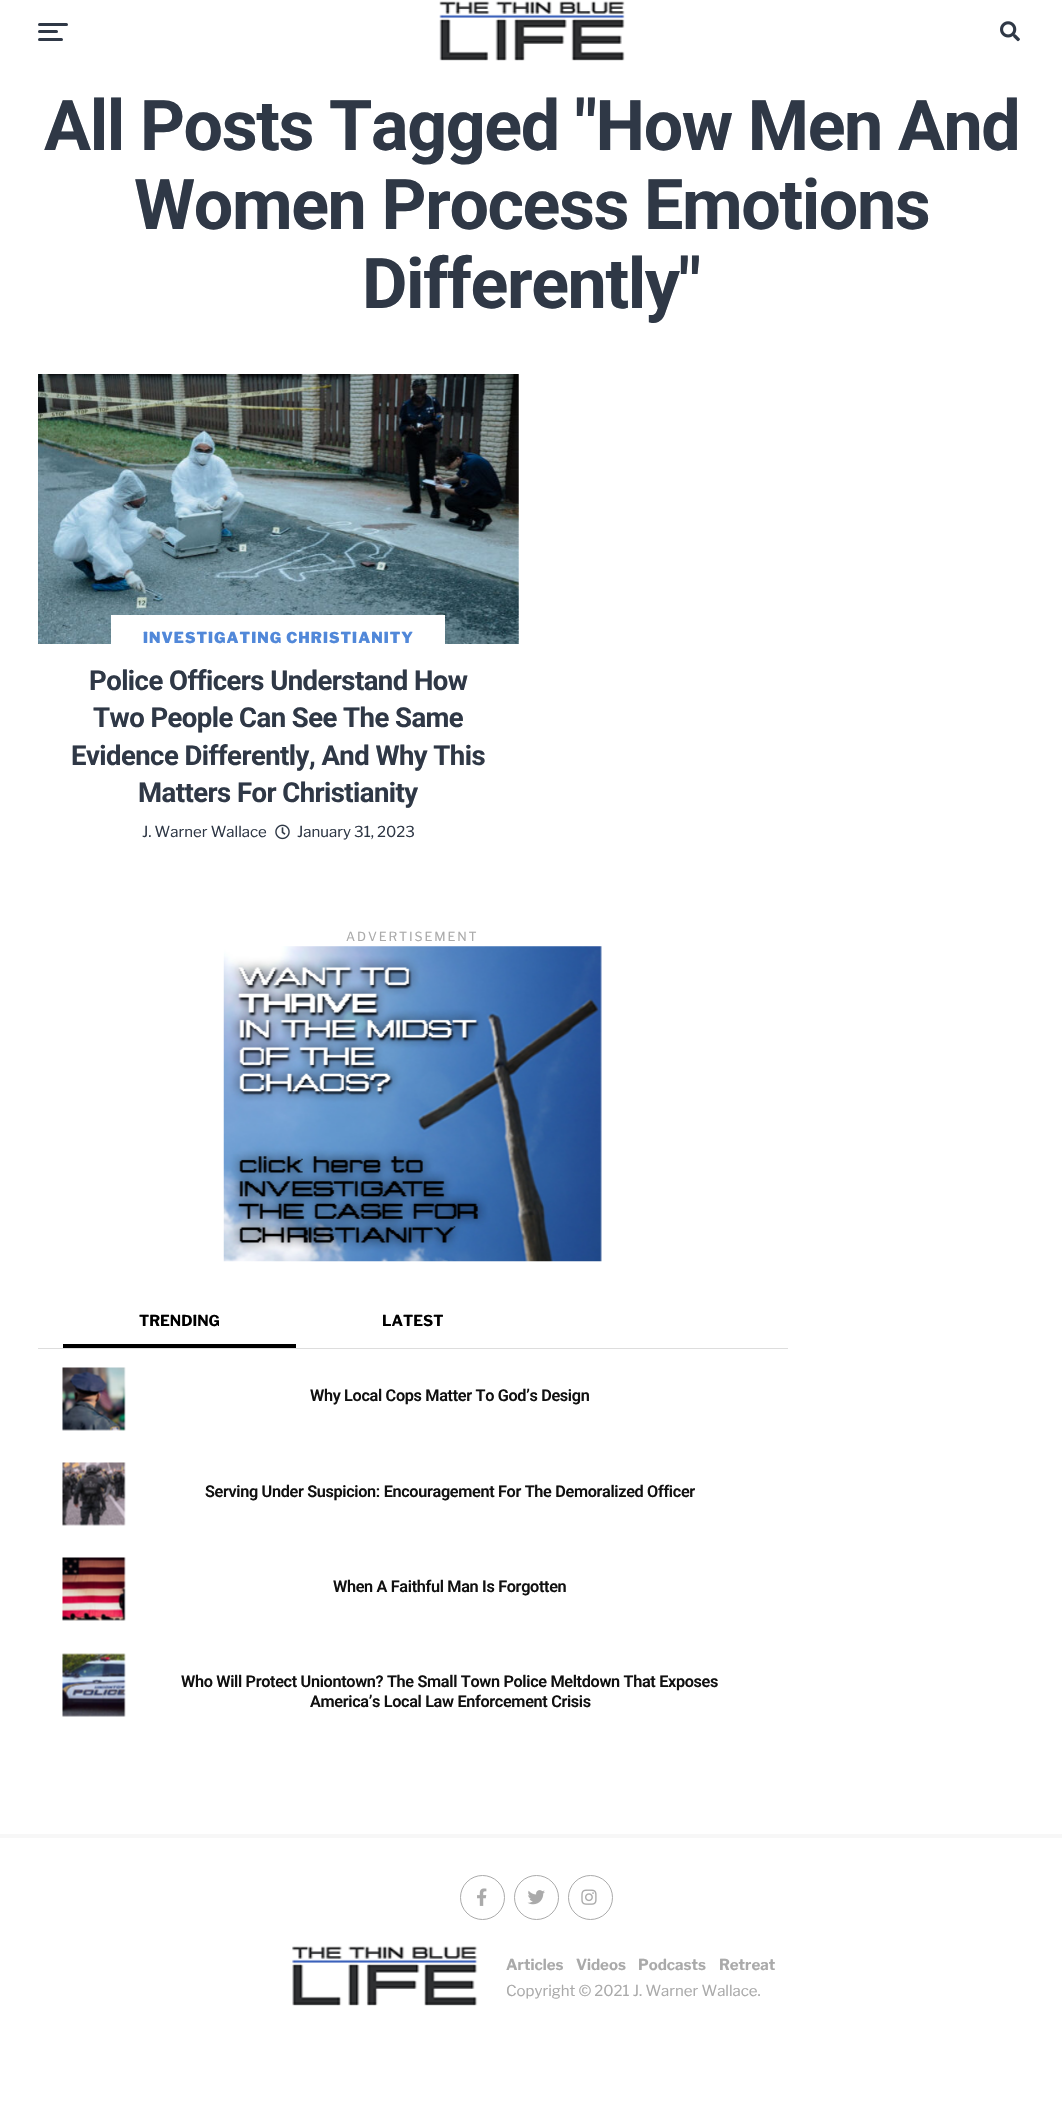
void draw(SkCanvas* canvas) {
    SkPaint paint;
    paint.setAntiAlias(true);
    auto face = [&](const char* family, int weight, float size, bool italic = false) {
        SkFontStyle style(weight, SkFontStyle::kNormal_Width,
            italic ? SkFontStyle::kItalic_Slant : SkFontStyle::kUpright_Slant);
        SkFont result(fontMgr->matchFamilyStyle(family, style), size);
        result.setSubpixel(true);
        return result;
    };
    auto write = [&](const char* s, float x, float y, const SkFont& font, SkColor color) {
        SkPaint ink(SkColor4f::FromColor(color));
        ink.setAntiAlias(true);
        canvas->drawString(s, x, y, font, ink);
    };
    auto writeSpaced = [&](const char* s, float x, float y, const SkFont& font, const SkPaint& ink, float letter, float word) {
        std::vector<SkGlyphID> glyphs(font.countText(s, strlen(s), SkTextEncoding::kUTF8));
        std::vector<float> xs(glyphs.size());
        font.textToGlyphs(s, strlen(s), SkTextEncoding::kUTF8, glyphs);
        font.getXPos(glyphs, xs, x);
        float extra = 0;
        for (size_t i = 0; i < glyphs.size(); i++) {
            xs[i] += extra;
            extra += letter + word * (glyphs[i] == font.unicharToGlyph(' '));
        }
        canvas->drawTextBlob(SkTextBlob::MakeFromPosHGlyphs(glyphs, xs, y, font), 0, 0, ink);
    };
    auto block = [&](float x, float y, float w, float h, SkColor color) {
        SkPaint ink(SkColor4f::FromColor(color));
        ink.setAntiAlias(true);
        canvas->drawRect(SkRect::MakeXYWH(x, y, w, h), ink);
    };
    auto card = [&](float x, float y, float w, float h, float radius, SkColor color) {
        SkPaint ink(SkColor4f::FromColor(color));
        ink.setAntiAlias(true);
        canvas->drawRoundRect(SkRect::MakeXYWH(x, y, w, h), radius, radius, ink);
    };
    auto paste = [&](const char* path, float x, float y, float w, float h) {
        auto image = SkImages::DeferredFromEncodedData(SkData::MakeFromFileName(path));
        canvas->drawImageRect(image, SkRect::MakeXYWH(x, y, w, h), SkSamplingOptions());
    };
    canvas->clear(SK_ColorWHITE);
    card(38, 23, 30, 3, 1.5f, SkColorSetRGB(47, 56, 70));
    card(38, 30, 20, 3, 1.5f, SkColorSetRGB(47, 56, 70));
    card(38, 38, 25, 3, 1.5f, SkColorSetRGB(47, 56, 70));
    paste("pic1.png", 439, 1, 186, 60);
    paste("pic2.png", 1000, 21, 20, 21);
    auto kFont1 = face("Roboto", 700, 70);
    paint.setColor(SkColorSetRGB(47, 56, 70));
    writeSpaced("All Posts Tagged \"How Men And", 44, 150, kFont1, paint, -1.4f, 0);
    writeSpaced("Women Process Emotions", 134, 229, kFont1, paint, -1.4f, 0);
    writeSpaced("Differently\"", 362, 308, kFont1, paint, -1.4f, 0);
    paste("pic3.png", 38, 374, 481, 270);
    block(111, 615, 334, 29, SK_ColorWHITE);
    auto kFont2 = face("Libre Franklin", 900, 15);
    paint.setColor(SkColorSetRGB(81, 136, 217));
    writeSpaced("INVESTIGATING CHRISTIANITY", 143, 643, kFont2, paint, 1.05f, 0);
    auto kFont3 = face("Roboto", 700, 27.5f);
    paint.setColor(SkColorSetRGB(47, 56, 70));
    writeSpaced("Police Officers Understand How", 89, 690, kFont3, paint, -0.55f, 0);
    writeSpaced("Two People Can See The Same", 93, 727, kFont3, paint, -0.55f, 0);
    writeSpaced("Evidence Differently, And Why This", 71, 765, kFont3, paint, -0.55f, 0);
    writeSpaced("Matters For Christianity", 138, 802, kFont3, paint, -0.55f, 0);
    auto kFont4 = face("Libre Franklin", 400, 15);
    write("J. Warner Wallace", 142, 837, kFont4, SkColorSetRGB(47, 56, 70));
    paste("pic4.png", 275, 824, 15, 16);
    write("January 31, 2023", 297, 837, kFont4, SkColorSetRGB(47, 56, 70));
    auto kFont5 = face("Libre Franklin", 400, 12.5f);
    paint.setColor(SkColorSetRGB(170, 170, 170));
    writeSpaced("ADVERTISEMENT", 346, 941, kFont5, paint, 1.9f, 0);
    paste("pic5.png", 223, 946, 379, 316);
    block(38, 1348, 750, 1, SkColorSetRGB(221, 221, 221));
    block(63, 1344, 233, 4, SK_ColorBLACK);
    auto kFont6 = face("Libre Franklin", 700, 15);
    write("TRENDING", 139, 1326, kFont6, SK_ColorBLACK);
    write("LATEST", 382, 1326, kFont6, SK_ColorBLACK);
    paste("pic6.png", 62, 1367, 64, 64);
    auto kFont7 = face("Roboto", 600, 16.25f);
    paint.setColor(SkColorSetRGB(17, 17, 17));
    writeSpaced("Why Local Cops Matter To God’s Design", 310, 1401, kFont7, paint, -0.33f, 0);
    paste("pic7.png", 62, 1462, 64, 64);
    writeSpaced("Serving Under Suspicion: Encouragement For The Demoralized Officer", 205, 1497, kFont7, paint, -0.33f, 0);
    paste("pic8.png", 62, 1557, 64, 64);
    writeSpaced("When A Faithful Man Is Forgotten", 333, 1592, kFont7, paint, -0.33f, 0);
    paste("pic9.png", 62, 1653, 64, 64);
    writeSpaced("Who Will Protect Uniontown? The Small Town Police Meltdown That Exposes", 181, 1687, kFont7, paint, -0.33f, 0);
    writeSpaced("America’s Local Law Enforcement Crisis", 310, 1707, kFont7, paint, -0.33f, 0);
    block(0, 1834, 1062, 4, SkColorSetRGB(247, 247, 247));
    paint.setStyle(SkPaint::kStroke_Style);
    paint.setStrokeWidth(1);
    paint.setColor(SkColorSetRGB(170, 170, 170));
    canvas->drawCircle(482.5f, 1897.5f, 22, paint);
    paste("pic10.png", 477, 1888, 10, 18);
    canvas->drawCircle(536.5f, 1897.5f, 22, paint);
    paste("pic11.png", 527, 1890, 18, 15);
    canvas->drawCircle(590.5f, 1897.5f, 22, paint);
    paste("pic12.png", 581, 1889, 16, 16);
    paste("pic13.png", 292, 1946, 186, 60);
    write("Articles", 506, 1970, kFont6, SkColorSetRGB(170, 170, 170));
    write("Videos", 576, 1970, kFont6, SkColorSetRGB(170, 170, 170));
    write("Podcasts", 638, 1970, kFont6, SkColorSetRGB(170, 170, 170));
    write("Retreat", 719, 1970, kFont6, SkColorSetRGB(170, 170, 170));
    write("Copyright © 2021 J. Warner Wallace.", 506, 1996, kFont4, SkColorSetRGB(170, 170, 170));
}
